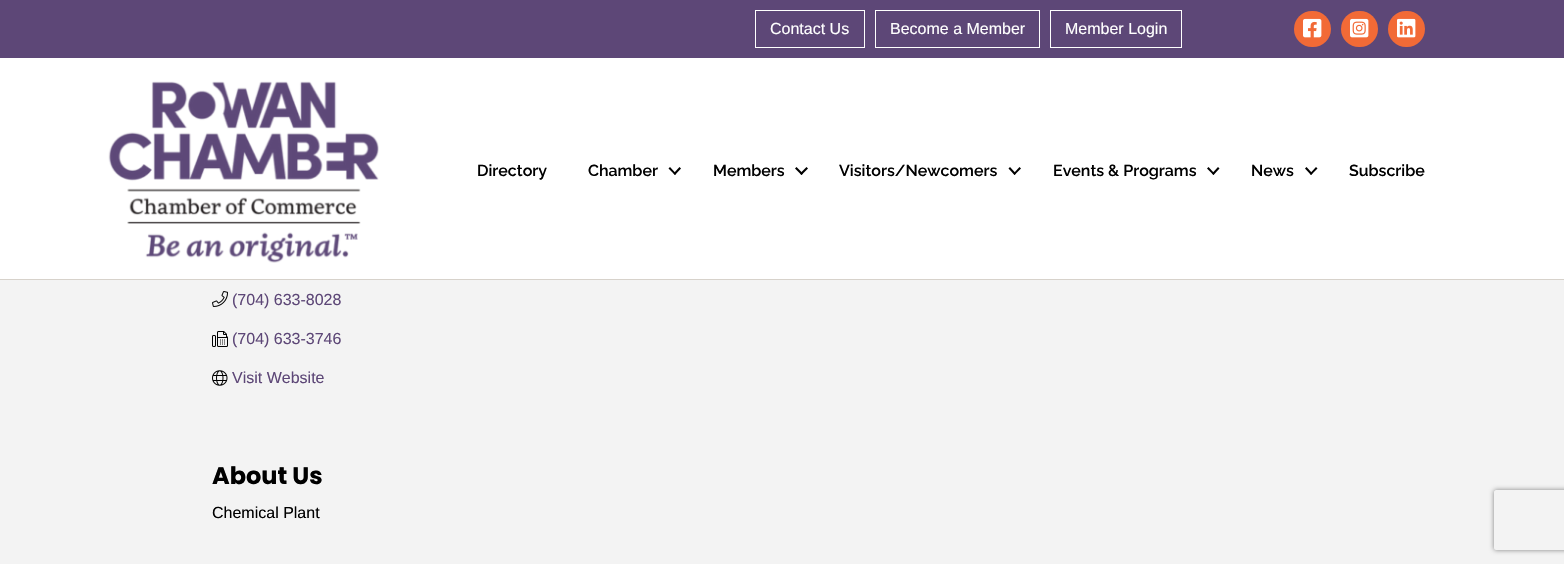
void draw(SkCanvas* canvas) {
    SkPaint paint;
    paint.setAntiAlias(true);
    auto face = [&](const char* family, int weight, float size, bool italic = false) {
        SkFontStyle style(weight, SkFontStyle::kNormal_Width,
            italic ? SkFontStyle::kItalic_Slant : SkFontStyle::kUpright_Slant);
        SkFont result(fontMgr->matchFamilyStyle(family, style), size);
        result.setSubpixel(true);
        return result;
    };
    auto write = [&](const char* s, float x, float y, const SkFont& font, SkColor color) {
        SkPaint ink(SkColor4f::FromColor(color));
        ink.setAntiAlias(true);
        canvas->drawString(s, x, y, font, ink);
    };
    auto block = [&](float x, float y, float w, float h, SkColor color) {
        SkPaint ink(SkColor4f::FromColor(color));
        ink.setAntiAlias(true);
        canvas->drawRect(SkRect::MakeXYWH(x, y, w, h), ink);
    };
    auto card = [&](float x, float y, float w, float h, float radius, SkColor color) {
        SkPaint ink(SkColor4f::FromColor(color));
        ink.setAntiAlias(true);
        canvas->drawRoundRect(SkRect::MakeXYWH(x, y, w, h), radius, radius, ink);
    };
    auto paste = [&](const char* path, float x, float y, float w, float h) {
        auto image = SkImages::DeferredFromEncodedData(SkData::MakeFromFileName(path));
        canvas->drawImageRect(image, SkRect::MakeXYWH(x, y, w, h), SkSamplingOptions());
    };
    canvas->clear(SkColorSetRGB(243, 243, 243));
    block(0, 0, 1564, 58, SkColorSetRGB(93, 71, 119));
    paint.setStyle(SkPaint::kStroke_Style);
    paint.setStrokeWidth(1);
    paint.setColor(SK_ColorWHITE);
    canvas->drawRect(SkRect::MakeXYWH(755.5f, 10.5f, 109, 37), paint);
    auto kFont1 = face("Liberation Sans", 400, 16);
    write("Contact Us", 770, 34, kFont1, SK_ColorWHITE);
    canvas->drawRect(SkRect::MakeXYWH(875.5f, 10.5f, 164, 37), paint);
    write("Become a Member", 890, 34, kFont1, SK_ColorWHITE);
    canvas->drawRect(SkRect::MakeXYWH(1050.5f, 10.5f, 131, 37), paint);
    write("Member Login", 1065, 34, kFont1, SK_ColorWHITE);
    card(1294, 11, 37, 36, 18, SkColorSetRGB(242, 106, 54));
    paste("pic1.png", 1303, 18, 19, 20);
    card(1341, 11, 37, 36, 18, SkColorSetRGB(242, 106, 54));
    paste("pic2.png", 1350, 18, 19, 20);
    card(1388, 11, 37, 36, 18, SkColorSetRGB(242, 106, 54));
    paste("pic3.png", 1397, 18, 19, 20);
    block(0, 58, 1564, 221, SK_ColorWHITE);
    block(0, 279, 1564, 1, SkColorSetRGB(215, 210, 203));
    paste("pic4.png", 108, 81, 271, 182);
    auto kFont2 = face("Raleway", 600, 16);
    write("Directory", 477, 176, kFont2, SK_ColorBLACK);
    write("Chamber", 588, 176, kFont2, SK_ColorBLACK);
    paint.setStyle(SkPaint::kFill_Style);
    paint.setColor(SK_ColorBLACK);
    canvas->drawPath(SkPathBuilder().moveTo(679.5f, 167).lineTo(681, 168.5f).lineTo(675, 175).lineTo(673.5f, 173.5f).close().detach(), paint);
    canvas->drawPath(SkPathBuilder().moveTo(670, 167).lineTo(676, 173.5f).lineTo(675, 175).lineTo(668.5f, 168.5f).close().detach(), paint);
    write("Members", 713, 176, kFont2, SK_ColorBLACK);
    canvas->drawPath(SkPathBuilder().moveTo(806.5f, 167).lineTo(808, 168.5f).lineTo(801.5f, 175).lineTo(800, 173.5f).close().detach(), paint);
    canvas->drawPath(SkPathBuilder().moveTo(796.5f, 167).lineTo(803, 173.5f).lineTo(801.5f, 175).lineTo(795, 168.5f).close().detach(), paint);
    write("Visitors/Newcomers", 839, 176, kFont2, SK_ColorBLACK);
    canvas->drawPath(SkPathBuilder().moveTo(1019.5f, 167).lineTo(1021, 168.5f).lineTo(1014.5f, 175).lineTo(1013.5f, 173.5f).close().detach(), paint);
    canvas->drawPath(SkPathBuilder().moveTo(1010, 167).lineTo(1016, 173.5f).lineTo(1014.5f, 175).lineTo(1008.5f, 168.5f).close().detach(), paint);
    write("Events & Programs", 1053, 176, kFont2, SK_ColorBLACK);
    canvas->drawPath(SkPathBuilder().moveTo(1218, 167).lineTo(1219.5f, 168.5f).lineTo(1213.5f, 175).lineTo(1212, 173.5f).close().detach(), paint);
    canvas->drawPath(SkPathBuilder().moveTo(1208.5f, 167).lineTo(1214.5f, 173.5f).lineTo(1213.5f, 175).lineTo(1207, 168.5f).close().detach(), paint);
    write("News", 1251, 176, kFont2, SK_ColorBLACK);
    canvas->drawPath(SkPathBuilder().moveTo(1316, 167).lineTo(1317.5f, 168.5f).lineTo(1311, 175).lineTo(1310, 173.5f).close().detach(), paint);
    canvas->drawPath(SkPathBuilder().moveTo(1306.5f, 167).lineTo(1312.5f, 173.5f).lineTo(1311, 175).lineTo(1305, 168.5f).close().detach(), paint);
    write("Subscribe", 1349, 176, kFont2, SK_ColorBLACK);
    paste("pic5.png", 212, 291, 16, 16);
    write("(704) 633-8028", 232, 305, kFont1, SkColorSetRGB(93, 71, 119));
    paste("pic6.png", 212, 331, 16, 16);
    write("(704) 633-3746", 232, 344, kFont1, SkColorSetRGB(93, 71, 119));
    paste("pic7.png", 212, 370, 16, 16);
    write("Visit Website", 232, 383, kFont1, SkColorSetRGB(93, 71, 119));
    auto kFont3 = face("Poppins", 700, 24);
    write("About Us", 212, 484, kFont3, SK_ColorBLACK);
    write("Chemical Plant", 212, 518, kFont1, SK_ColorBLACK);
    canvas->save();
    canvas->clipPath(SkPathBuilder(SkPathFillType::kEvenOdd).moveTo(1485, 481).lineTo(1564, 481).lineTo(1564, 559).lineTo(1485, 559).close().moveTo(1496, 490).lineTo(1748, 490).cubicTo(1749, 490, 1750, 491, 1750, 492).lineTo(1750, 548).cubicTo(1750, 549, 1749, 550, 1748, 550).lineTo(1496, 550).cubicTo(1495, 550, 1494, 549, 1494, 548).lineTo(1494, 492).cubicTo(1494, 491, 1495, 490, 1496, 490).close().detach(), true);
    paint.setColor(SkColorSetRGB(128, 128, 128));
    paint.setMaskFilter(SkMaskFilter::MakeBlur(kNormal_SkBlurStyle, 2.5f));
    canvas->drawRoundRect(SkRect::MakeXYWH(1494, 490, 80, 60), 2, 2, paint);
    paint.setMaskFilter(nullptr);
    canvas->restore();
}
